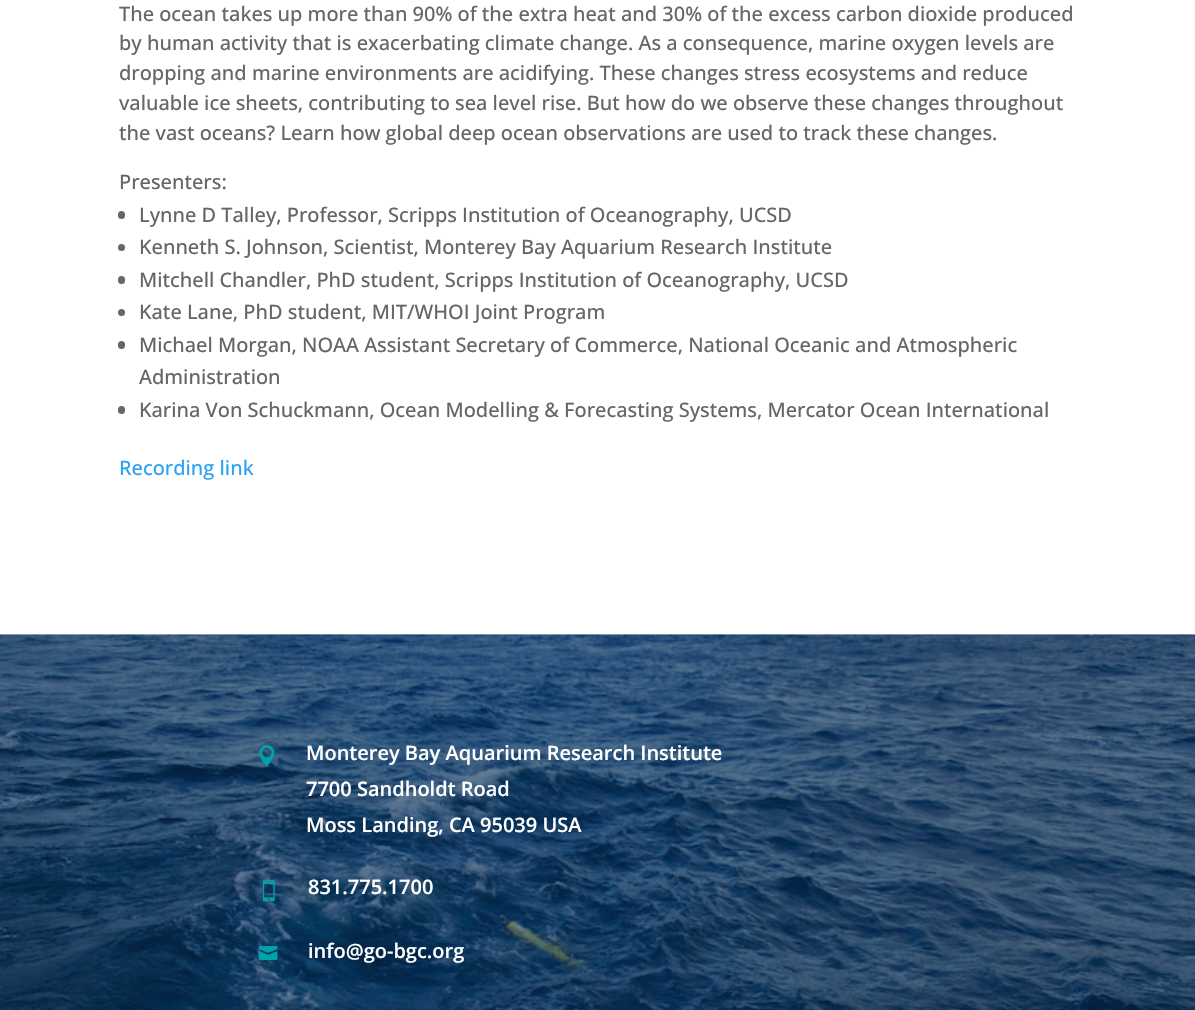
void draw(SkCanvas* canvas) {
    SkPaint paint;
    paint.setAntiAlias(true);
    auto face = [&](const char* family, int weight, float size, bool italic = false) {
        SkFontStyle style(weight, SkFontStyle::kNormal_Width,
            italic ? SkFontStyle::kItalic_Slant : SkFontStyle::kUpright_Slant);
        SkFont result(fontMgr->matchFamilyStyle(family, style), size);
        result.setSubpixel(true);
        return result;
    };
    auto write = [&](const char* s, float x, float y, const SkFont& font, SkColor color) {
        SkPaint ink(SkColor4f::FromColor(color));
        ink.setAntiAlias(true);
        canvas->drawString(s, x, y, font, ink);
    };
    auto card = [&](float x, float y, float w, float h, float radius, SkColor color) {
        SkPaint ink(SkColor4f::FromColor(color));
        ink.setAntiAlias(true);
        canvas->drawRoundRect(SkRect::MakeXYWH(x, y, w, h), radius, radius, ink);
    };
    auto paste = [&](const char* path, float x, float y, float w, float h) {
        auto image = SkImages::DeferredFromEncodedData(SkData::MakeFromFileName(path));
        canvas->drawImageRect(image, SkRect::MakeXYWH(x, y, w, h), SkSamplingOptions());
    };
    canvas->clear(SK_ColorWHITE);
    auto kFont1 = face("Open Sans", 500, 20);
    write("The ocean takes up more than 90% of the extra heat and 30% of the excess carbon dioxide produced", 119, 21, kFont1, SkColorSetRGB(102, 102, 102));
    write("by human activity that is exacerbating climate change. As a consequence, marine oxygen levels are", 119, 50, kFont1, SkColorSetRGB(102, 102, 102));
    write("dropping and marine environments are acidifying. These changes stress ecosystems and reduce", 119, 80, kFont1, SkColorSetRGB(102, 102, 102));
    write("valuable ice sheets, contributing to sea level rise. But how do we observe these changes throughout", 119, 110, kFont1, SkColorSetRGB(102, 102, 102));
    write("the vast oceans? Learn how global deep ocean observations are used to track these changes.", 119, 140, kFont1, SkColorSetRGB(102, 102, 102));
    write("Presenters:", 119, 189, kFont1, SkColorSetRGB(102, 102, 102));
    card(118, 211, 7, 8, 3.5f, SkColorSetRGB(102, 102, 102));
    write("Lynne D Talley, Professor, Scripps Institution of Oceanography, UCSD", 139, 222, kFont1, SkColorSetRGB(102, 102, 102));
    paint.setColor(SkColorSetRGB(102, 102, 102));
    canvas->drawCircle(121.5f, 247.5f, 3.5f, paint);
    write("Kenneth S. Johnson, Scientist, Monterey Bay Aquarium Research Institute", 139, 254, kFont1, SkColorSetRGB(102, 102, 102));
    card(118, 276, 7, 8, 3.5f, SkColorSetRGB(102, 102, 102));
    write("Mitchell Chandler, PhD student, Scripps Institution of Oceanography, UCSD", 139, 287, kFont1, SkColorSetRGB(102, 102, 102));
    canvas->drawCircle(121.5f, 312.5f, 3.5f, paint);
    write("Kate Lane, PhD student, MIT/WHOI Joint Program", 139, 319, kFont1, SkColorSetRGB(102, 102, 102));
    card(118, 341, 7, 8, 3.5f, SkColorSetRGB(102, 102, 102));
    write("Michael Morgan, NOAA Assistant Secretary of Commerce, National Oceanic and Atmospheric", 139, 352, kFont1, SkColorSetRGB(102, 102, 102));
    write("Administration", 139, 384, kFont1, SkColorSetRGB(102, 102, 102));
    card(118, 406, 7, 8, 3.5f, SkColorSetRGB(102, 102, 102));
    write("Karina Von Schuckmann, Ocean Modelling & Forecasting Systems, Mercator Ocean International", 139, 417, kFont1, SkColorSetRGB(102, 102, 102));
    write("Recording link", 119, 475, kFont1, SkColorSetRGB(46, 163, 242));
    paste("pic1.png", 0, 634, 1195, 376);
    paste("pic2.png", 259, 745, 16, 22);
    auto kFont2 = face("Open Sans", 600, 20);
    write("Monterey Bay Aquarium Research Institute", 306, 760, kFont2, SK_ColorWHITE);
    write("7700 Sandholdt Road", 306, 796, kFont2, SK_ColorWHITE);
    write("Moss Landing, CA 95039 USA", 306, 832, kFont2, SK_ColorWHITE);
    paste("pic3.png", 262, 880, 13, 22);
    write("831.775.1700", 308, 894, kFont2, SK_ColorWHITE);
    paste("pic4.png", 258, 946, 20, 15);
    write("info@go-bgc.org", 308, 958, kFont2, SK_ColorWHITE);
}
